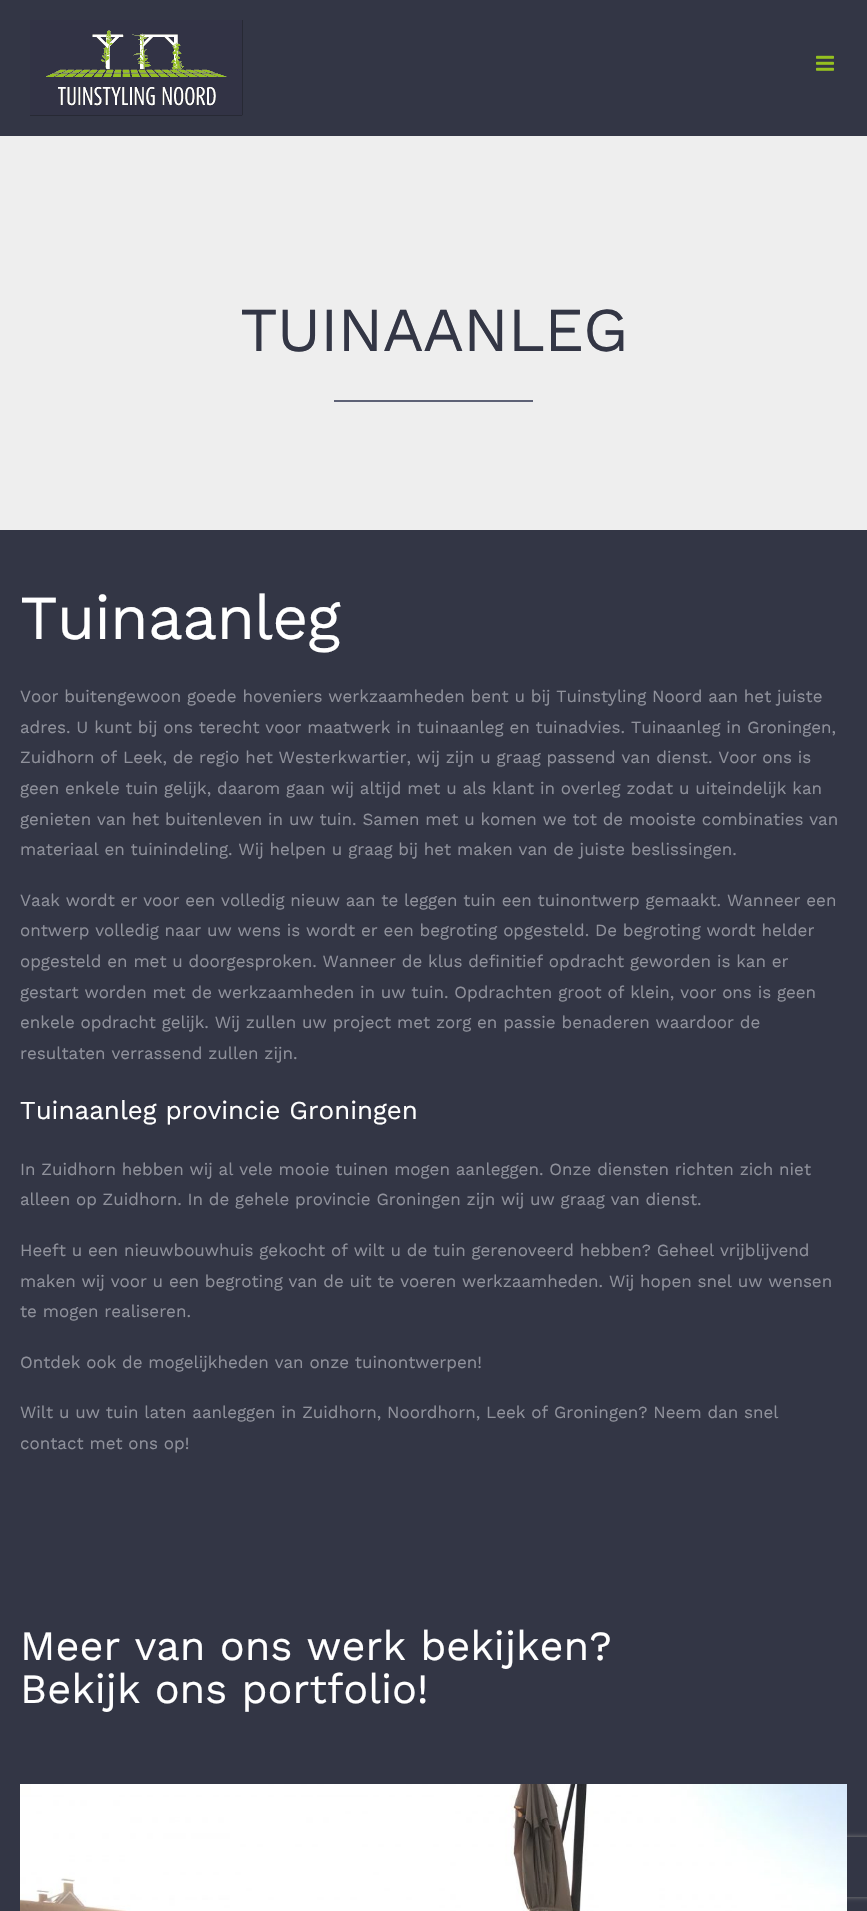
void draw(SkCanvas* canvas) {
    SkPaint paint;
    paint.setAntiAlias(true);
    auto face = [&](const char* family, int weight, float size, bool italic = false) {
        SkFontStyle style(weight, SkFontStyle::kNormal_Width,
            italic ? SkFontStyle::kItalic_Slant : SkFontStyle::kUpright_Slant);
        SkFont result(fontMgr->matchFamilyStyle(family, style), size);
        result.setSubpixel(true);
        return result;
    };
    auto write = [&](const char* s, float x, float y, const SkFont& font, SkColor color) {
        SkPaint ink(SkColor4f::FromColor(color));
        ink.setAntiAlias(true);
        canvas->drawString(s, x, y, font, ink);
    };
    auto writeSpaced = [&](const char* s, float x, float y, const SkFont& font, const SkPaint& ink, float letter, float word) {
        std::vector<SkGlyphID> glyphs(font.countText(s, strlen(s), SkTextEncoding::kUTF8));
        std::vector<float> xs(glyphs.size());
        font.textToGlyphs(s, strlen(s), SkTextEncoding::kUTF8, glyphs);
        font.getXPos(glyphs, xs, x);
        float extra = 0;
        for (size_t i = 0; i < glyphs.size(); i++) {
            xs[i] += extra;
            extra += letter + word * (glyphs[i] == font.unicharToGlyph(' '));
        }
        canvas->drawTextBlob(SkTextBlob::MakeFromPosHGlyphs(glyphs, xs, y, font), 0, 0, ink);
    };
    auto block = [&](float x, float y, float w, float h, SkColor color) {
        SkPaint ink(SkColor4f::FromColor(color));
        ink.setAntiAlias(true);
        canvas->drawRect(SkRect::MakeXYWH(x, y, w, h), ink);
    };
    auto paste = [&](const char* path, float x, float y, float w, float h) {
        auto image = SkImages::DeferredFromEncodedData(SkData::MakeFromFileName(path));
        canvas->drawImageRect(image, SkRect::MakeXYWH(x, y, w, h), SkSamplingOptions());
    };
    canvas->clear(SkColorSetRGB(51, 54, 69));
    paste("pic1.png", 30, 20, 213, 96);
    paste("pic2.png", 816, 55, 18, 16);
    block(0, 136, 867, 394, SkColorSetRGB(238, 238, 238));
    auto kFont1 = face("Work Sans", 400, 62.5f);
    paint.setColor(SkColorSetRGB(51, 54, 69));
    writeSpaced("TUINAANLEG", 240, 351, kFont1, paint, -1, 0);
    block(334, 400, 199, 2, SkColorSetRGB(94, 98, 118));
    paint.setColor(SK_ColorWHITE);
    writeSpaced("Tuinaanleg", 20, 639, kFont1, paint, -1, 0);
    auto kFont2 = face("Work Sans", 400, 17);
    write("Voor buitengewoon goede hoveniers werkzaamheden bent u bij Tuinstyling Noord aan het juiste", 20, 702, kFont2, SkColorSetRGB(143, 145, 155));
    write("adres. U kunt bij ons terecht voor maatwerk in tuinaanleg en tuinadvies. Tuinaanleg in Groningen,", 20, 733, kFont2, SkColorSetRGB(143, 145, 155));
    write("Zuidhorn of Leek, de regio het Westerkwartier, wij zijn u graag passend van dienst. Voor ons is", 20, 763, kFont2, SkColorSetRGB(143, 145, 155));
    write("geen enkele tuin gelijk, daarom gaan wij altijd met u als klant in overleg zodat u uiteindelijk kan", 20, 794, kFont2, SkColorSetRGB(143, 145, 155));
    write("genieten van het buitenleven in uw tuin. Samen met u komen we tot de mooiste combinaties van", 20, 825, kFont2, SkColorSetRGB(143, 145, 155));
    write("materiaal en tuinindeling. Wij helpen u graag bij het maken van de juiste beslissingen.", 20, 855, kFont2, SkColorSetRGB(143, 145, 155));
    write("Vaak wordt er voor een volledig nieuw aan te leggen tuin een tuinontwerp gemaakt. Wanneer een", 20, 906, kFont2, SkColorSetRGB(143, 145, 155));
    write("ontwerp volledig naar uw wens is wordt er een begroting opgesteld. De begroting wordt helder", 20, 936, kFont2, SkColorSetRGB(143, 145, 155));
    write("opgesteld en met u doorgesproken. Wanneer de klus definitief opdracht geworden is kan er", 20, 967, kFont2, SkColorSetRGB(143, 145, 155));
    write("gestart worden met de werkzaamheden in uw tuin. Opdrachten groot of klein, voor ons is geen", 20, 998, kFont2, SkColorSetRGB(143, 145, 155));
    write("enkele opdracht gelijk. Wij zullen uw project met zorg en passie benaderen waardoor de", 20, 1028, kFont2, SkColorSetRGB(143, 145, 155));
    write("resultaten verrassend zullen zijn.", 20, 1059, kFont2, SkColorSetRGB(143, 145, 155));
    auto kFont3 = face("Work Sans", 400, 25.9f);
    write("Tuinaanleg provincie Groningen", 20, 1119, kFont3, SK_ColorWHITE);
    write("In Zuidhorn hebben wij al vele mooie tuinen mogen aanleggen. Onze diensten richten zich niet", 20, 1175, kFont2, SkColorSetRGB(143, 145, 155));
    write("alleen op Zuidhorn. In de gehele provincie Groningen zijn wij uw graag van dienst.", 20, 1205, kFont2, SkColorSetRGB(143, 145, 155));
    write("Heeft u een nieuwbouwhuis gekocht of wilt u de tuin gerenoveerd hebben? Geheel vrijblijvend", 20, 1256, kFont2, SkColorSetRGB(143, 145, 155));
    write("maken wij voor u een begroting van de uit te voeren werkzaamheden. Wij hopen snel uw wensen", 20, 1287, kFont2, SkColorSetRGB(143, 145, 155));
    write("te mogen realiseren.", 20, 1317, kFont2, SkColorSetRGB(143, 145, 155));
    write("Ontdek ook de mogelijkheden van onze tuinontwerpen!", 20, 1368, kFont2, SkColorSetRGB(143, 145, 155));
    write("Wilt u uw tuin laten aanleggen in Zuidhorn, Noordhorn, Leek of Groningen? Neem dan snel", 20, 1418, kFont2, SkColorSetRGB(143, 145, 155));
    write("contact met ons op!", 20, 1449, kFont2, SkColorSetRGB(143, 145, 155));
    auto kFont4 = face("Work Sans", 400, 41.6f);
    write("Meer van ons werk bekijken?", 20, 1660, kFont4, SK_ColorWHITE);
    write("Bekijk ons portfolio!", 20, 1703, kFont4, SK_ColorWHITE);
    canvas->save();
    canvas->clipPath(SkPathBuilder(SkPathFillType::kEvenOdd).moveTo(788, 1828).lineTo(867, 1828).lineTo(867, 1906).lineTo(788, 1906).close().moveTo(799, 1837).lineTo(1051, 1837).cubicTo(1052, 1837, 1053, 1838, 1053, 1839).lineTo(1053, 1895).cubicTo(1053, 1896, 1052, 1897, 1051, 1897).lineTo(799, 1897).cubicTo(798, 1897, 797, 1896, 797, 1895).lineTo(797, 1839).cubicTo(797, 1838, 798, 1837, 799, 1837).close().detach(), true);
    paint.setColor(SkColorSetRGB(128, 128, 128));
    paint.setMaskFilter(SkMaskFilter::MakeBlur(kNormal_SkBlurStyle, 2.5f));
    canvas->drawRoundRect(SkRect::MakeXYWH(797, 1837, 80, 60), 2, 2, paint);
    paint.setMaskFilter(nullptr);
    canvas->restore();
    paste("pic3.png", 20, 1784, 827, 127);
}
